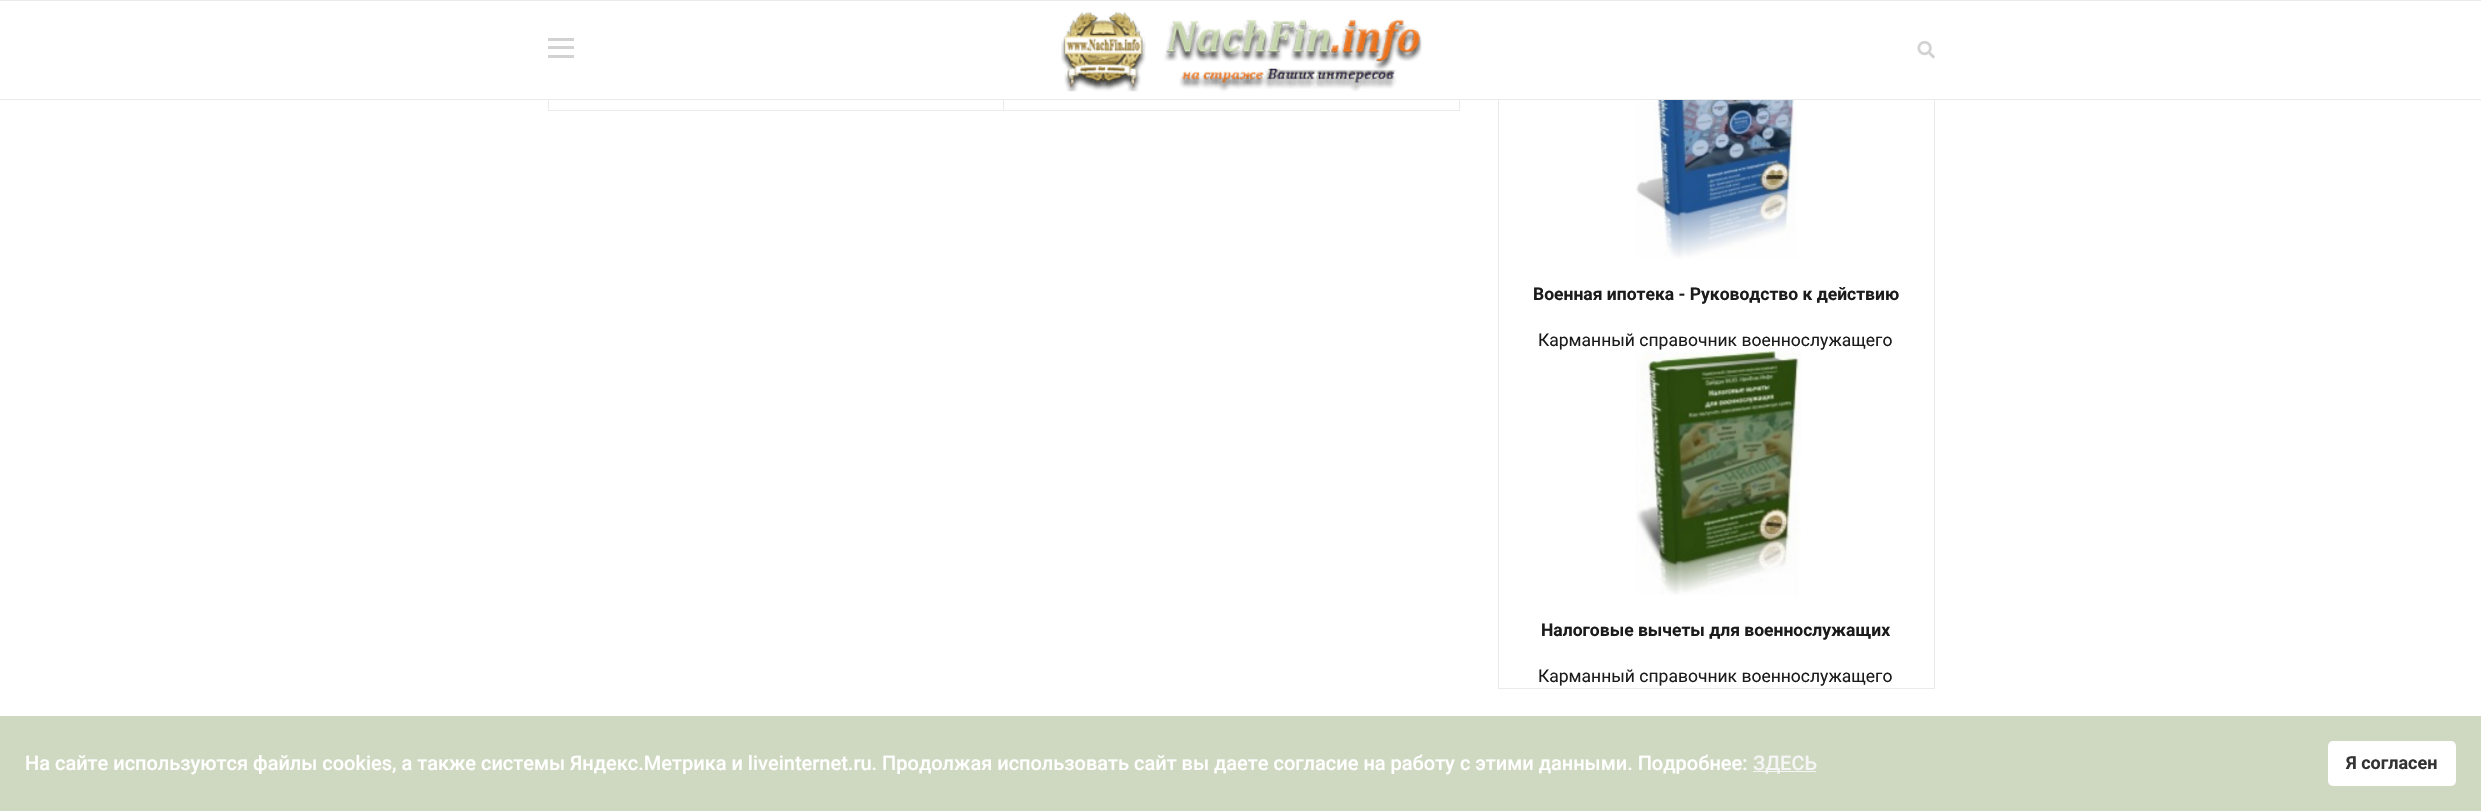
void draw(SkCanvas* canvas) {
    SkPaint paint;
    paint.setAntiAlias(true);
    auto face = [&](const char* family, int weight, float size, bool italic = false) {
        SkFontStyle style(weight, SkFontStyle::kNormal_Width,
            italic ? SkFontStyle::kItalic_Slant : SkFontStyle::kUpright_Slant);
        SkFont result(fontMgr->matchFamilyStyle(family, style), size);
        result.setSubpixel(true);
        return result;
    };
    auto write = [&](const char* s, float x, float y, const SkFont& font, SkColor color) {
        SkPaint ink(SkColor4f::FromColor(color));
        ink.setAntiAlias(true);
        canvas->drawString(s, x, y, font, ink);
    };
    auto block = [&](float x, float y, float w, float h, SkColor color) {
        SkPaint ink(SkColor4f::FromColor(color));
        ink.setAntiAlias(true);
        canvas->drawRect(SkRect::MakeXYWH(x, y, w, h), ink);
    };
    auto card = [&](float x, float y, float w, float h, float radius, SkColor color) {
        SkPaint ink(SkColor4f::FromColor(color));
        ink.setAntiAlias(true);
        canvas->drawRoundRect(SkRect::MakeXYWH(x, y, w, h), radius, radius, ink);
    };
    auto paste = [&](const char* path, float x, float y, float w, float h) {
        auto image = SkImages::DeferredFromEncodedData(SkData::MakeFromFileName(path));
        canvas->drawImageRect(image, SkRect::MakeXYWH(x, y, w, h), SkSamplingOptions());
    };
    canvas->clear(SK_ColorWHITE);
    paint.setStyle(SkPaint::kStroke_Style);
    paint.setStrokeWidth(1);
    paint.setColor(SkColorSetRGB(235, 235, 235));
    canvas->drawRect(SkRect::MakeXYWH(548.5f, 45.5f, 911, 65), paint);
    canvas->drawRect(SkRect::MakeXYWH(1498.5f, -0.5f, 436, 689), paint);
    block(548, 1, 1387, 98, SK_ColorWHITE);
    block(0, 0, 2481, 1, SkColorSetRGB(234, 234, 234));
    block(0, 99, 2481, 1, SkColorSetRGB(234, 234, 234));
    block(548, 38, 26, 3, SkColorSetRGB(210, 210, 211));
    block(548, 46, 26, 3, SkColorSetRGB(210, 210, 211));
    block(548, 55, 26, 3, SkColorSetRGB(210, 210, 211));
    paste("pic1.png", 1061, 11, 361, 81);
    paste("pic2.png", 1917, 41, 18, 18);
    block(1003, 100, 1, 10, SkColorSetRGB(235, 235, 235));
    paste("pic3.png", 1636, 100, 163, 159);
    auto kFont1 = face("Roboto", 700, 17.5f);
    write("Военная ипотека - Руководство к действию", 1533, 300, kFont1, SkColorSetRGB(27, 27, 27));
    auto kFont2 = face("Roboto", 400, 17.5f);
    write("Карманный справочник военнослужащего", 1538, 346, kFont2, SkColorSetRGB(27, 27, 27));
    paste("pic4.png", 1636, 351, 165, 244);
    write("Налоговые вычеты для военнослужащих", 1541, 636, kFont1, SkColorSetRGB(27, 27, 27));
    write("Карманный справочник военнослужащего", 1538, 682, kFont2, SkColorSetRGB(27, 27, 27));
    block(0, 716, 2481, 95, SkColorSetRGB(207, 217, 193));
    auto kFont3 = face("Roboto", 500, 20);
    write("На сайте используются файлы cookies, а также системы Яндекс.Метрика и liveinternet.ru. Продолжая использовать сайт вы даете согласие на работу с этими данными. Подробнее:", 25, 770, kFont3, SK_ColorWHITE);
    block(1753, 771, 63, 1, SkColorSetRGB(245, 245, 245));
    write("ЗДЕСЬ", 1753, 770, kFont3, SkColorSetRGB(245, 245, 245));
    card(2328, 741, 128, 45, 5, SK_ColorWHITE);
    auto kFont4 = face("Roboto", 700, 18);
    write("Я согласен", 2346, 769, kFont4, SkColorSetRGB(51, 51, 51));
}
